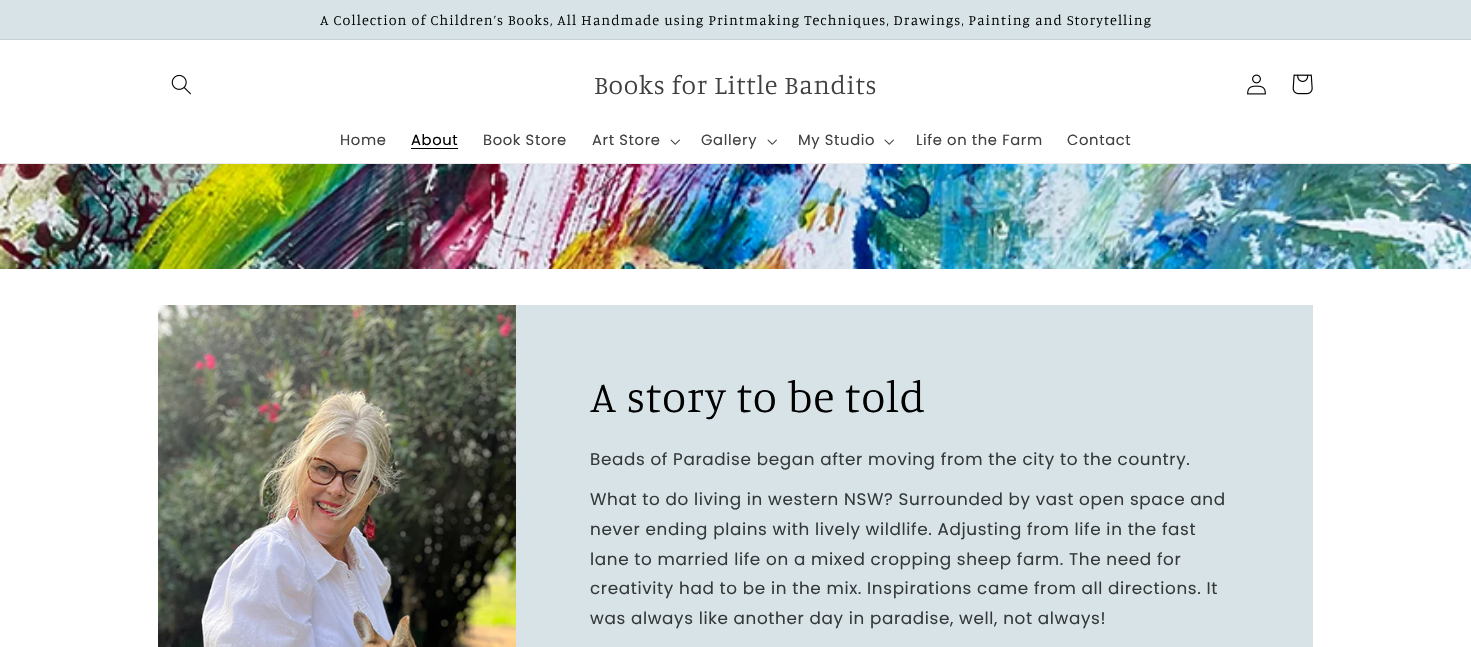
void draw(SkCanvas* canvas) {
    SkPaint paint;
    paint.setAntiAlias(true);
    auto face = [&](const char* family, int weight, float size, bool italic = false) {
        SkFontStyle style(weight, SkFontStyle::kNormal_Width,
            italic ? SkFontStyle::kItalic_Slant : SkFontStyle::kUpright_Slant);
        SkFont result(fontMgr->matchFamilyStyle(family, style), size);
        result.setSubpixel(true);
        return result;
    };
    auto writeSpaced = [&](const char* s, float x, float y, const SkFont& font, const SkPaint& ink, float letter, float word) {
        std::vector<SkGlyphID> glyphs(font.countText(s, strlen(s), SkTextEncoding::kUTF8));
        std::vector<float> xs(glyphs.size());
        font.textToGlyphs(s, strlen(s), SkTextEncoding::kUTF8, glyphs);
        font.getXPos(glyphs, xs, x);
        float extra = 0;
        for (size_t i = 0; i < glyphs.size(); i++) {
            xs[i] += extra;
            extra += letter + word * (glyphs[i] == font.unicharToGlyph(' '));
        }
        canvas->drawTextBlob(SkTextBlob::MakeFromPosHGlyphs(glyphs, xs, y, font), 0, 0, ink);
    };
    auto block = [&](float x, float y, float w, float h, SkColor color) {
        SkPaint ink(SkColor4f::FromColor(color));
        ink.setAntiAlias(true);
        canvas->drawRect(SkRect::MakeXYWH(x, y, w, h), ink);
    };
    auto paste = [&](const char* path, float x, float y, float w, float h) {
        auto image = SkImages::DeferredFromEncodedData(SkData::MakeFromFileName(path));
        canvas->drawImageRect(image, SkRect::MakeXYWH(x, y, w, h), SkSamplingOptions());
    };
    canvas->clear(SK_ColorWHITE);
    block(0, 0, 1471, 39, SkColorSetRGB(215, 227, 231));
    block(0, 39, 1471, 1, SkColorSetRGB(198, 209, 213));
    auto kFont1 = face("Manuale", 300, 14.3f);
    paint.setColor(SK_ColorBLACK);
    writeSpaced("A Collection of Children’s Books, All Handmade using Printmaking Techniques, Drawings, Painting and Storytelling", 320, 25, kFont1, paint, 1.05f, 0);
    block(0, 163, 1471, 1, SkColorSetRGB(235, 235, 235));
    paste("pic1.png", 171, 74, 20, 21);
    auto kFont2 = face("Manuale", 300, 26.4f);
    paint.setColor(SkColorSetRGB(64, 64, 64));
    writeSpaced("Books for Little Bandits", 594, 94, kFont2, paint, 0.7f, 0);
    paste("pic2.png", 1247, 74, 19, 21);
    paste("pic3.png", 1292, 74, 21, 21);
    auto kFont3 = face("Poppins", 400, 14.75f);
    writeSpaced("Home", 340, 145, kFont3, paint, 0.63f, 0);
    paint.setColor(SK_ColorBLACK);
    writeSpaced("About", 411, 145, kFont3, paint, 0.63f, 0);
    block(411, 148, 47, 1, SK_ColorBLACK);
    paint.setColor(SkColorSetRGB(64, 64, 64));
    writeSpaced("Book Store", 483, 145, kFont3, paint, 0.63f, 0);
    writeSpaced("Art Store", 592, 145, kFont3, paint, 0.63f, 0);
    paste("pic4.png", 670, 139, 10, 6);
    writeSpaced("Gallery", 701, 145, kFont3, paint, 0.63f, 0);
    paste("pic4.png", 767, 139, 10, 6);
    writeSpaced("My Studio", 798, 145, kFont3, paint, 0.63f, 0);
    paste("pic4.png", 884, 139, 10, 6);
    writeSpaced("Life on the Farm", 916, 145, kFont3, paint, 0.63f, 0);
    writeSpaced("Contact", 1067, 145, kFont3, paint, 0.63f, 0);
    paste("pic5.png", 0, 164, 1471, 105);
    paste("pic6.png", 158, 305, 358, 342);
    block(516, 305, 797, 342, SkColorSetRGB(215, 227, 231));
    auto kFont4 = face("Manuale", 300, 44);
    paint.setColor(SK_ColorBLACK);
    writeSpaced("A story to be told", 590, 412, kFont4, paint, 0.7f, 0);
    auto kFont5 = face("Poppins", 400, 16.8f);
    paint.setColor(SkColorSetRGB(54, 57, 58));
    writeSpaced("Beads of Paradise began after moving from the city to the country.", 590, 465, kFont5, paint, 0.63f, 0);
    writeSpaced("What to do living in western NSW? Surrounded by vast open space and", 590, 505, kFont5, paint, 0.63f, 0);
    writeSpaced("never ending plains with lively wildlife. Adjusting from life in the fast", 590, 535, kFont5, paint, 0.63f, 0);
    writeSpaced("lane to married life on a mixed cropping sheep farm. The need for", 590, 565, kFont5, paint, 0.63f, 0);
    writeSpaced("creativity had to be in the mix. Inspirations came from all directions. It", 590, 594, kFont5, paint, 0.63f, 0);
    writeSpaced("was always like another day in paradise, well, not always!", 590, 624, kFont5, paint, 0.63f, 0);
}
